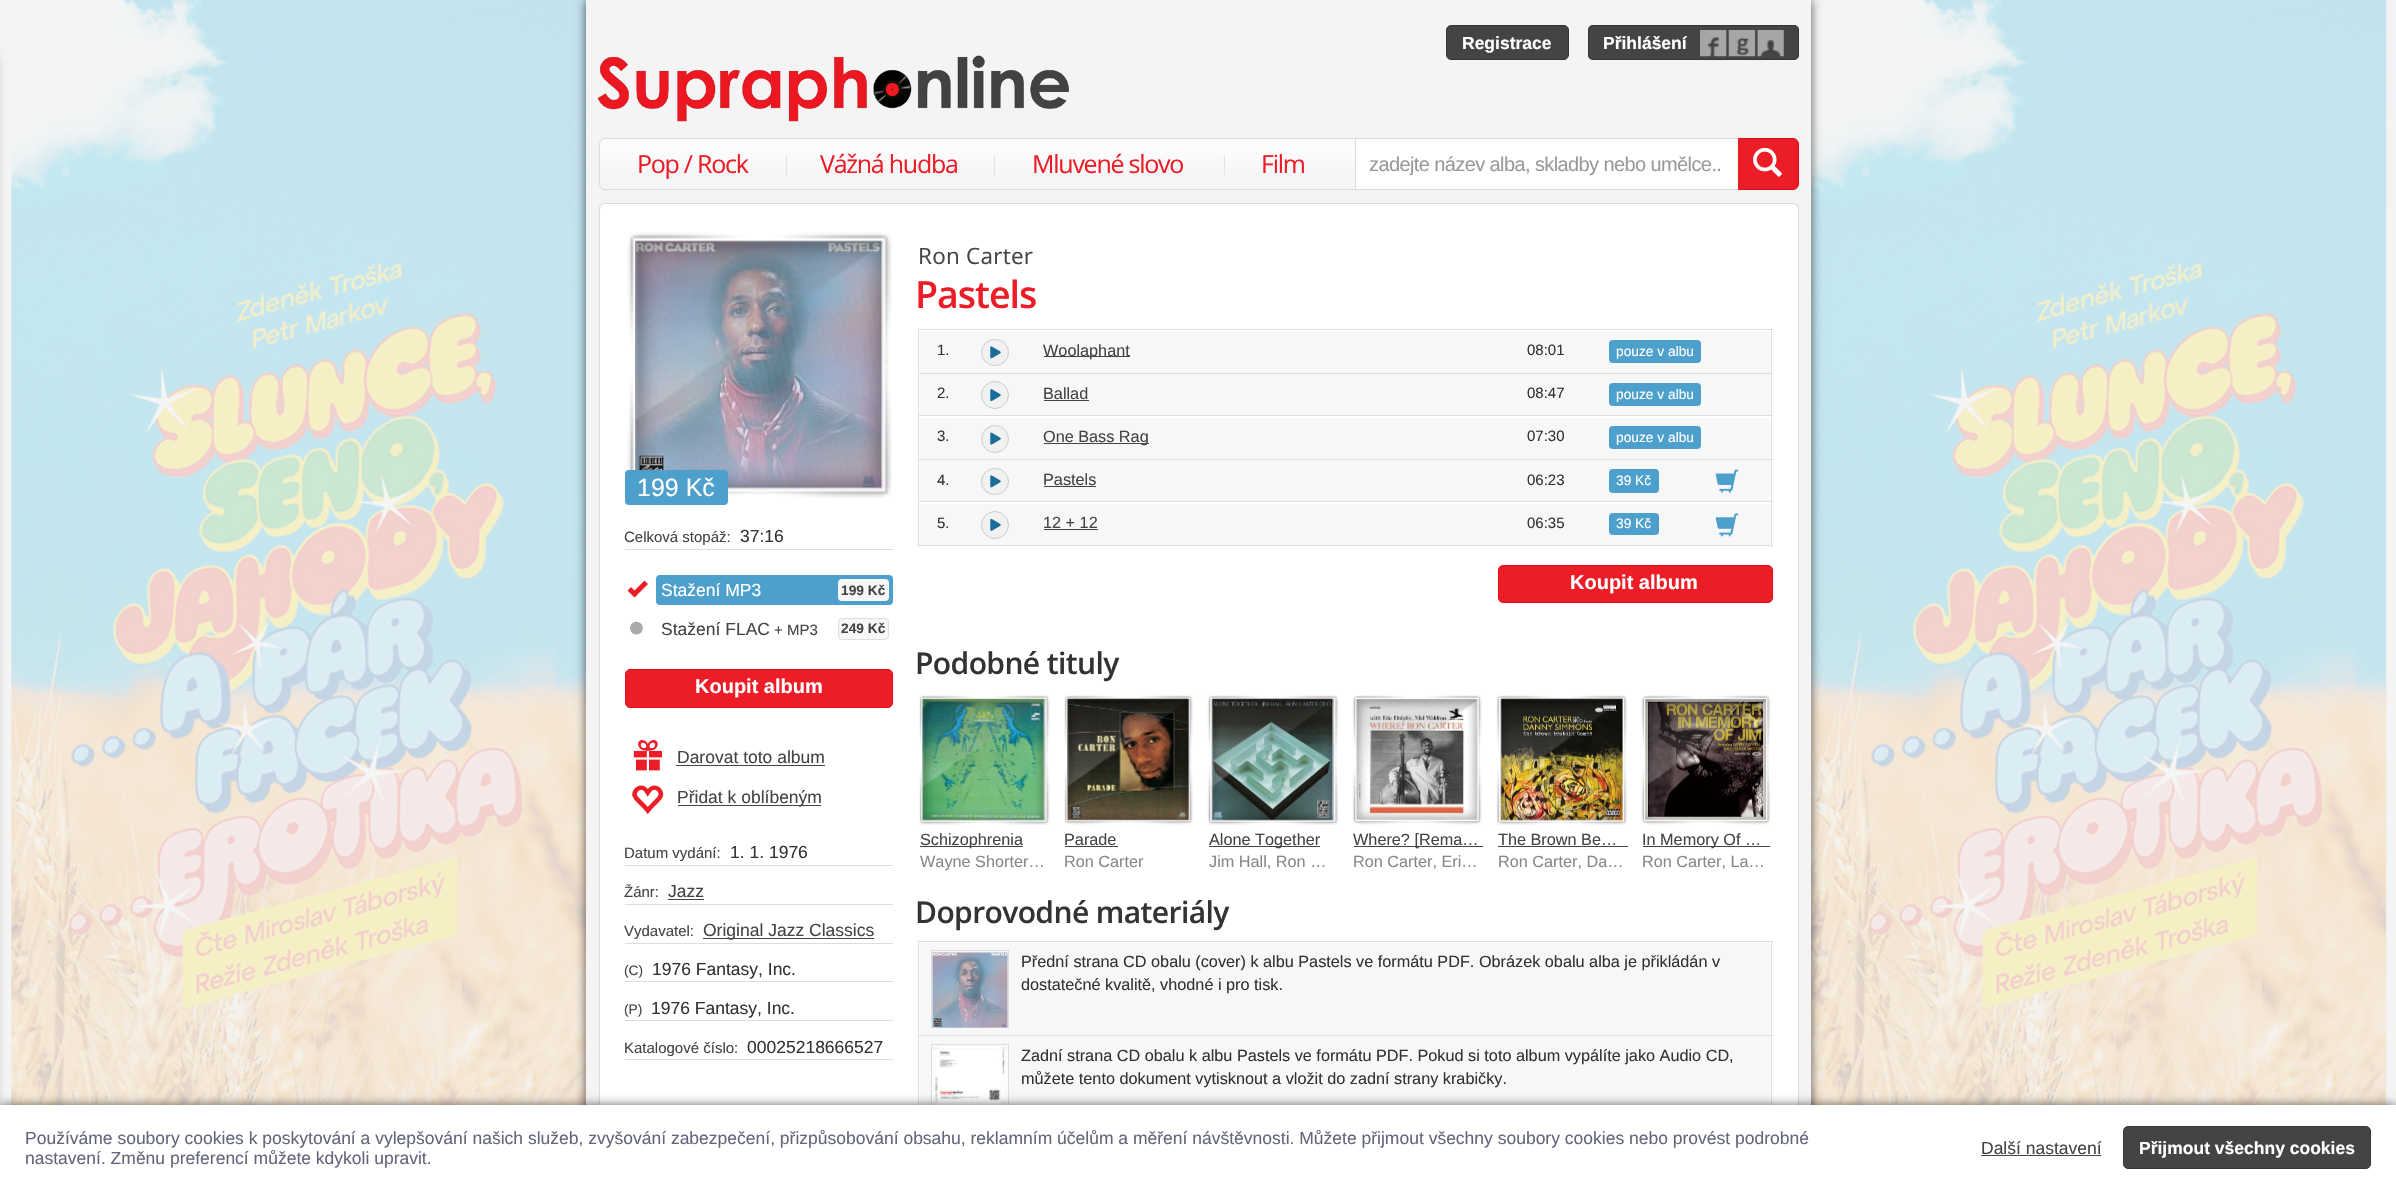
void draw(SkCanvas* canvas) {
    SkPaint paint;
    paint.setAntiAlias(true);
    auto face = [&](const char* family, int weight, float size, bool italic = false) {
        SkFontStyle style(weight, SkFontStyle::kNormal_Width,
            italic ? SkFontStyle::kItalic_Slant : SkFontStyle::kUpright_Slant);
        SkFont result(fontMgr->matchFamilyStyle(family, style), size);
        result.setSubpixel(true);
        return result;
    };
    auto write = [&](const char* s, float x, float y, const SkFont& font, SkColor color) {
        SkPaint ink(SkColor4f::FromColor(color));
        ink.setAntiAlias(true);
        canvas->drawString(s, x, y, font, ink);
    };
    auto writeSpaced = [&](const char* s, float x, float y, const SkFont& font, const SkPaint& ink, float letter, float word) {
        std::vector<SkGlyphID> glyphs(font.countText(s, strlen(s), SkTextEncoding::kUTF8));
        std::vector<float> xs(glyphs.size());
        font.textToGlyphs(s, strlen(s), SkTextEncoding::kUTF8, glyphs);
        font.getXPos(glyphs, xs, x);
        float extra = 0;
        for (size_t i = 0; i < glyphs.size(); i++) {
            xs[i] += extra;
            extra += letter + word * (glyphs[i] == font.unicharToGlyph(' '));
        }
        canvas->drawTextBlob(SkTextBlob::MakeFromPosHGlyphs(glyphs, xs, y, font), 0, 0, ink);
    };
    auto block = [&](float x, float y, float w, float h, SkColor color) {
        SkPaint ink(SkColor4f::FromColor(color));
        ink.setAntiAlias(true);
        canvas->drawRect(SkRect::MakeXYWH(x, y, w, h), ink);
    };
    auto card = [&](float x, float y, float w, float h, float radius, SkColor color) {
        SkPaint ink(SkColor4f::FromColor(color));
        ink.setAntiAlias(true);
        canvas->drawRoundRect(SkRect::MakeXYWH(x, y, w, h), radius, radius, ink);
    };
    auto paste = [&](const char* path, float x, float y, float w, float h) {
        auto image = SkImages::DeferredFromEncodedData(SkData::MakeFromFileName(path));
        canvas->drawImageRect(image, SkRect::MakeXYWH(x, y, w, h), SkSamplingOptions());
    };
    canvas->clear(SkColorSetRGB(244, 244, 244));
    paste("pic1.png", 11, 0, 575, 1105);
    paste("pic2.png", 1811, 0, 576, 1105);
    paint.setColor(SkColorSetARGB(166, 0, 0, 0));
    paint.setMaskFilter(SkMaskFilter::MakeBlur(kNormal_SkBlurStyle, 5));
    canvas->drawRect(SkRect::MakeXYWH(586, 0, 1225, 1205), paint);
    paint.setMaskFilter(nullptr);
    block(586, 0, 1225, 1105, SkColorSetRGB(244, 244, 244));
    paint.setColor(SkColorSetRGB(139, 139, 139));
    paint.setMaskFilter(SkMaskFilter::MakeBlur(kNormal_SkBlurStyle, 6));
    canvas->drawRect(SkRect::MakeXYWH(-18, 58, 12, 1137), paint);
    paint.setMaskFilter(nullptr);
    paint.setColor(SkColorSetRGB(69, 68, 68));
    canvas->drawRoundRect(SkRect::MakeXYWH(1446.5f, 25.5f, 122, 34), 4.5f, 4.5f, paint);
    paint.setStyle(SkPaint::kStroke_Style);
    paint.setStrokeWidth(1);
    paint.setColor(SkColorSetRGB(56, 55, 55));
    canvas->drawRoundRect(SkRect::MakeXYWH(1446.5f, 25.5f, 122, 34), 4.5f, 4.5f, paint);
    auto kFont1 = face("Liberation Sans", 700, 17.5f);
    write("Registrace", 1462, 49, kFont1, SK_ColorWHITE);
    card(1588, 25, 211, 35, 5, SkColorSetRGB(69, 68, 68));
    paste("pic3.png", 1700, 30, 84, 27);
    canvas->drawRoundRect(SkRect::MakeXYWH(1588.5f, 25.5f, 210, 34), 4.5f, 4.5f, paint);
    write("Přihlášení", 1603, 49, kFont1, SK_ColorWHITE);
    paste("pic4.png", 597, 55, 472, 67);
    paint.setStyle(SkPaint::kFill_Style);
    paint.setColor(SkColorSetRGB(225, 225, 225));
    paint.setMaskFilter(SkMaskFilter::MakeBlur(kNormal_SkBlurStyle, 0.5f));
    canvas->drawRoundRect(SkRect::MakeXYWH(599, 138, 1200, 52), 6, 6, paint);
    paint.setMaskFilter(nullptr);
    canvas->save();
    canvas->clipPath(SkPathBuilder().moveTo(605, 138).lineTo(1793, 138).cubicTo(1796.5f, 138, 1799, 140.5f, 1799, 144).lineTo(1799, 184).cubicTo(1799, 187.5f, 1796.5f, 190, 1793, 190).lineTo(605, 190).cubicTo(601.5f, 190, 599, 187.5f, 599, 184).lineTo(599, 144).cubicTo(599, 140.5f, 601.5f, 138, 605, 138).close().detach(), true);
    {
        const SkColor colors[] = {SkColorSetRGB(252, 252, 252), SkColorSetRGB(245, 245, 245)};
        const float stops[] = {0.25f, 0.75f};
        const SkPoint ends[] = {{1199, 139}, {1199, 189}};
        paint.setShader(SkGradientShader::MakeLinear(ends, colors, stops, 2, SkTileMode::kClamp));
        paint.setAlpha(255);
    }
    canvas->drawRect(SkRect::MakeXYWH(599, 139, 1200, 50), paint);
    canvas->restore();
    paint.setStyle(SkPaint::kStroke_Style);
    paint.setShader(nullptr);
    paint.setColor(SkColorSetRGB(221, 221, 221));
    canvas->drawRoundRect(SkRect::MakeXYWH(599.5f, 138.5f, 1199, 51), 5.5f, 5.5f, paint);
    auto kFont2 = face("Open Sans", 400, 25);
    paint.setStyle(SkPaint::kFill_Style);
    paint.setColor(SkColorSetRGB(236, 29, 39));
    writeSpaced("Pop / Rock", 637, 173, kFont2, paint, -1.25f, 0);
    auto kFont3 = face("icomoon", 400, 20);
    write("|", 781, 173, kFont3, SkColorSetRGB(226, 226, 226));
    writeSpaced("Vážná hudba", 820, 173, kFont2, paint, -1.25f, 0);
    write("|", 989, 173, kFont3, SkColorSetRGB(226, 226, 226));
    writeSpaced("Mluvené slovo", 1032, 173, kFont2, paint, -1.25f, 0);
    write("|", 1219, 173, kFont3, SkColorSetRGB(226, 226, 226));
    writeSpaced("Film", 1261, 173, kFont2, paint, -1.25f, 0);
    canvas->drawPath(SkPathBuilder().moveTo(1736.5f, 138.5f).lineTo(1793, 138.5f).cubicTo(1796, 138.5f, 1798.5f, 141, 1798.5f, 144).lineTo(1798.5f, 184).cubicTo(1798.5f, 187, 1796, 189.5f, 1793, 189.5f).lineTo(1736.5f, 189.5f).close().detach(), paint);
    paint.setStyle(SkPaint::kStroke_Style);
    paint.setColor(SkColorSetRGB(216, 18, 28));
    canvas->drawPath(SkPathBuilder().moveTo(1736.5f, 138.5f).lineTo(1793, 138.5f).cubicTo(1796, 138.5f, 1798.5f, 141, 1798.5f, 144).lineTo(1798.5f, 184).cubicTo(1798.5f, 187, 1796, 189.5f, 1793, 189.5f).lineTo(1736.5f, 189.5f).close().detach(), paint);
    block(1356, 139, 382, 50, SK_ColorWHITE);
    block(1736, 138, 2, 1, SkColorSetRGB(221, 221, 221));
    block(1736, 189, 2, 1, SkColorSetRGB(221, 221, 221));
    block(1355, 138, 1, 52, SkColorSetRGB(221, 221, 221));
    auto kFont4 = face("Liberation Sans", 400, 20);
    paint.setStyle(SkPaint::kFill_Style);
    paint.setColor(SkColorSetRGB(153, 153, 153));
    writeSpaced("zadejte název alba, skladby nebo umělce..", 1369, 171, kFont4, paint, -0.6f, 0);
    paste("pic5.png", 1753, 147, 29, 30);
    paint.setColor(SkColorSetRGB(225, 225, 225));
    paint.setMaskFilter(SkMaskFilter::MakeBlur(kNormal_SkBlurStyle, 0.5f));
    canvas->drawRoundRect(SkRect::MakeXYWH(599, 203, 1200, 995), 6, 6, paint);
    paint.setMaskFilter(nullptr);
    paint.setColor(SK_ColorWHITE);
    canvas->drawPath(SkPathBuilder().moveTo(605, 203.5f).lineTo(1793, 203.5f).cubicTo(1796, 203.5f, 1798.5f, 206, 1798.5f, 209).lineTo(1798.5f, 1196.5f).lineTo(599.5f, 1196.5f).lineTo(599.5f, 209).cubicTo(599.5f, 206, 602, 203.5f, 605, 203.5f).close().detach(), paint);
    paint.setStyle(SkPaint::kStroke_Style);
    paint.setColor(SkColorSetRGB(221, 221, 221));
    canvas->drawPath(SkPathBuilder().moveTo(605, 203.5f).lineTo(1793, 203.5f).cubicTo(1796, 203.5f, 1798.5f, 206, 1798.5f, 209).lineTo(1798.5f, 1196.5f).lineTo(599.5f, 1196.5f).lineTo(599.5f, 209).cubicTo(599.5f, 206, 602, 203.5f, 605, 203.5f).close().detach(), paint);
    paste("pic7.png", 635, 241, 247, 247);
    paste("pic6.png", 627, 232, 265, 266);
    card(625, 470, 103, 35, 4, SkColorSetRGB(77, 159, 204));
    auto kFont5 = face("Liberation Sans", 400, 25);
    write("199 Kč", 637, 496, kFont5, SK_ColorWHITE);
    block(625, 549, 268, 1, SkColorSetRGB(221, 221, 221));
    auto kFont6 = face("Liberation Sans", 400, 15);
    write("Celková stopáž:", 624, 542, kFont6, SkColorSetRGB(69, 68, 68));
    auto kFont7 = face("Liberation Sans", 400, 17.5f);
    write("37:16", 740, 542, kFont7, SkColorSetRGB(51, 51, 51));
    paint.setStyle(SkPaint::kFill_Style);
    paint.setColor(SkColorSetRGB(236, 29, 39));
    canvas->drawPath(SkPathBuilder().moveTo(627.5f, 590.5f).lineTo(634.5f, 597.5f).lineTo(648, 584).lineTo(644.5f, 580.5f).lineTo(634.5f, 590.5f).lineTo(631, 587).close().detach(), paint);
    card(656, 575, 237, 30, 4, SkColorSetRGB(77, 159, 204));
    write("Stažení MP3", 661, 596, kFont7, SK_ColorWHITE);
    card(838, 579, 51, 22, 4, SkColorSetRGB(247, 247, 247));
    auto kFont8 = face("Liberation Sans", 700, 13.75f);
    write("199 Kč", 841, 595, kFont8, SkColorSetRGB(69, 68, 68));
    paste("pic8.png", 630, 621, 13, 14);
    write("Stažení FLAC", 661, 635, kFont7, SkColorSetRGB(69, 68, 68));
    write("+ MP3", 774, 635, kFont6, SkColorSetRGB(69, 68, 68));
    paint.setColor(SkColorSetRGB(247, 247, 247));
    canvas->drawRoundRect(SkRect::MakeXYWH(838.5f, 618.5f, 50, 21), 3.5f, 3.5f, paint);
    paint.setStyle(SkPaint::kStroke_Style);
    paint.setColor(SkColorSetRGB(221, 221, 221));
    canvas->drawRoundRect(SkRect::MakeXYWH(838.5f, 618.5f, 50, 21), 3.5f, 3.5f, paint);
    write("249 Kč", 841, 633, kFont8, SkColorSetRGB(69, 68, 68));
    paint.setStyle(SkPaint::kFill_Style);
    paint.setColor(SkColorSetRGB(236, 29, 39));
    canvas->drawRoundRect(SkRect::MakeXYWH(625.5f, 669.5f, 267, 38), 4.5f, 4.5f, paint);
    paint.setStyle(SkPaint::kStroke_Style);
    paint.setColor(SkColorSetRGB(221, 19, 28));
    canvas->drawRoundRect(SkRect::MakeXYWH(625.5f, 669.5f, 267, 38), 4.5f, 4.5f, paint);
    auto kFont9 = face("Liberation Sans", 700, 20);
    write("Koupit album", 695, 693, kFont9, SK_ColorWHITE);
    paste("pic9.png", 633, 740, 29, 31);
    write("Darovat toto album", 677, 763, kFont7, SkColorSetRGB(69, 68, 68));
    block(676, 765, 149, 1, SkColorSetRGB(69, 68, 68));
    paste("pic10.png", 632, 785, 32, 29);
    block(678, 805, 143, 1, SkColorSetRGB(69, 68, 68));
    write("Přidat k oblíbeným", 677, 803, kFont7, SkColorSetRGB(69, 68, 68));
    block(625, 865, 268, 1, SkColorSetRGB(221, 221, 221));
    write("Datum vydání:", 624, 858, kFont6, SkColorSetRGB(69, 68, 68));
    write("1. 1. 1976", 730, 858, kFont7, SkColorSetRGB(51, 51, 51));
    block(625, 904, 268, 1, SkColorSetRGB(221, 221, 221));
    write("Žánr:", 624, 897, kFont6, SkColorSetRGB(69, 68, 68));
    write("Jazz", 668, 897, kFont7, SkColorSetRGB(69, 68, 68));
    block(668, 899, 36, 1, SkColorSetRGB(69, 68, 68));
    block(625, 943, 268, 1, SkColorSetRGB(221, 221, 221));
    write("Vydavatel:", 624, 936, kFont6, SkColorSetRGB(69, 68, 68));
    block(703, 938, 171, 1, SkColorSetRGB(69, 68, 68));
    write("Original Jazz Classics", 703, 936, kFont7, SkColorSetRGB(69, 68, 68));
    block(625, 981, 268, 1, SkColorSetRGB(221, 221, 221));
    auto kFont10 = face("Liberation Sans", 400, 13.75f);
    write("(C)", 624, 975, kFont10, SkColorSetRGB(69, 68, 68));
    write("1976 Fantasy, Inc.", 652, 975, kFont7, SkColorSetRGB(51, 51, 51));
    block(625, 1020, 268, 1, SkColorSetRGB(221, 221, 221));
    write("(P)", 624, 1014, kFont10, SkColorSetRGB(69, 68, 68));
    write("1976 Fantasy, Inc.", 651, 1014, kFont7, SkColorSetRGB(51, 51, 51));
    block(625, 1059, 268, 1, SkColorSetRGB(221, 221, 221));
    write("Katalogové číslo:", 624, 1053, kFont6, SkColorSetRGB(69, 68, 68));
    write("00025218666527", 747, 1053, kFont7, SkColorSetRGB(51, 51, 51));
    auto kFont11 = face("Open Sans", 400, 22.5f);
    paint.setStyle(SkPaint::kFill_Style);
    paint.setColor(SkColorSetRGB(69, 68, 68));
    writeSpaced("Ron Carter", 918, 264, kFont11, paint, 0.25f, 0);
    auto kFont12 = face("Open Sans", 600, 37.5f);
    paint.setColor(SkColorSetRGB(236, 29, 39));
    writeSpaced("Pastels", 915, 308, kFont12, paint, -1, 0);
    block(918, 545, 855, 1, SkColorSetRGB(221, 221, 221));
    block(920, 331, 850, 42, SkColorSetRGB(247, 247, 247));
    block(918, 329, 855, 1, SkColorSetRGB(221, 221, 221));
    block(918, 373, 855, 1, SkColorSetRGB(221, 221, 221));
    block(918, 415, 855, 1, SkColorSetRGB(221, 221, 221));
    block(918, 459, 855, 1, SkColorSetRGB(221, 221, 221));
    block(918, 501, 855, 1, SkColorSetRGB(221, 221, 221));
    block(1771, 544, 1, 3, SkColorSetRGB(221, 221, 221));
    block(1771, 501, 1, 44, SkColorSetRGB(221, 221, 221));
    block(1771, 458, 1, 45, SkColorSetRGB(221, 221, 221));
    block(1771, 415, 1, 44, SkColorSetRGB(221, 221, 221));
    block(1771, 371, 1, 45, SkColorSetRGB(221, 221, 221));
    block(1771, 329, 1, 44, SkColorSetRGB(221, 221, 221));
    block(918, 544, 1, 3, SkColorSetRGB(221, 221, 221));
    block(918, 501, 1, 44, SkColorSetRGB(221, 221, 221));
    block(918, 458, 1, 45, SkColorSetRGB(221, 221, 221));
    block(918, 415, 1, 44, SkColorSetRGB(221, 221, 221));
    block(918, 371, 1, 45, SkColorSetRGB(221, 221, 221));
    block(918, 329, 1, 44, SkColorSetRGB(221, 221, 221));
    write("1.", 937, 355, kFont6, SkColorSetRGB(51, 51, 51));
    paint.setColor(SkColorSetRGB(241, 241, 241));
    canvas->drawRoundRect(SkRect::MakeXYWH(981.5f, 339.5f, 27, 26), 13, 13, paint);
    paint.setStyle(SkPaint::kStroke_Style);
    paint.setColor(SkColorSetRGB(204, 204, 204));
    canvas->drawRoundRect(SkRect::MakeXYWH(981.5f, 339.5f, 27, 26), 13, 13, paint);
    paste("pic11.png", 990, 346, 11, 13);
    block(1044, 356, 86, 1, SkColorSetRGB(69, 68, 68));
    auto kFont13 = face("Liberation Sans", 400, 16.25f);
    write("Woolaphant", 1043, 356, kFont13, SkColorSetRGB(69, 68, 68));
    write("08:01", 1527, 355, kFont6, SkColorSetRGB(51, 51, 51));
    card(1609, 340, 92, 23, 4, SkColorSetRGB(77, 159, 204));
    write("pouze v albu", 1616, 356, kFont10, SK_ColorWHITE);
    block(920, 374, 850, 41, SkColorSetRGB(247, 247, 247));
    write("2.", 937, 398, kFont6, SkColorSetRGB(51, 51, 51));
    paint.setStyle(SkPaint::kFill_Style);
    paint.setColor(SkColorSetRGB(241, 241, 241));
    canvas->drawCircle(995, 395, 13.5f, paint);
    paint.setStyle(SkPaint::kStroke_Style);
    paint.setColor(SkColorSetRGB(204, 204, 204));
    canvas->drawCircle(995, 395, 13.5f, paint);
    paste("pic12.png", 990, 389, 11, 13);
    write("Ballad", 1043, 399, kFont13, SkColorSetRGB(69, 68, 68));
    block(1044, 400, 45, 1, SkColorSetRGB(69, 68, 68));
    write("08:47", 1527, 398, kFont6, SkColorSetRGB(51, 51, 51));
    card(1609, 383, 92, 23, 4, SkColorSetRGB(77, 159, 204));
    write("pouze v albu", 1616, 399, kFont10, SK_ColorWHITE);
    block(920, 418, 850, 41, SkColorSetRGB(247, 247, 247));
    write("3.", 937, 441, kFont6, SkColorSetRGB(51, 51, 51));
    paint.setStyle(SkPaint::kFill_Style);
    paint.setColor(SkColorSetRGB(241, 241, 241));
    canvas->drawCircle(995, 439, 13.5f, paint);
    paint.setStyle(SkPaint::kStroke_Style);
    paint.setColor(SkColorSetRGB(204, 204, 204));
    canvas->drawCircle(995, 439, 13.5f, paint);
    paste("pic13.png", 990, 432, 11, 13);
    block(1044, 443, 105, 1, SkColorSetRGB(69, 68, 68));
    write("One Bass Rag", 1043, 442, kFont13, SkColorSetRGB(69, 68, 68));
    write("07:30", 1527, 441, kFont6, SkColorSetRGB(51, 51, 51));
    card(1609, 426, 92, 23, 4, SkColorSetRGB(77, 159, 204));
    write("pouze v albu", 1616, 442, kFont10, SK_ColorWHITE);
    block(920, 460, 850, 41, SkColorSetRGB(247, 247, 247));
    write("4.", 937, 485, kFont6, SkColorSetRGB(51, 51, 51));
    paint.setStyle(SkPaint::kFill_Style);
    paint.setColor(SkColorSetRGB(241, 241, 241));
    canvas->drawRoundRect(SkRect::MakeXYWH(981.5f, 468.5f, 27, 26), 13, 13, paint);
    paint.setStyle(SkPaint::kStroke_Style);
    paint.setColor(SkColorSetRGB(204, 204, 204));
    canvas->drawRoundRect(SkRect::MakeXYWH(981.5f, 468.5f, 27, 26), 13, 13, paint);
    paste("pic11.png", 990, 475, 11, 13);
    write("Pastels", 1043, 485, kFont13, SkColorSetRGB(69, 68, 68));
    block(1044, 486, 52, 1, SkColorSetRGB(69, 68, 68));
    write("06:23", 1527, 485, kFont6, SkColorSetRGB(51, 51, 51));
    card(1609, 469, 50, 24, 4, SkColorSetRGB(77, 159, 204));
    write("39 Kč", 1616, 485, kFont10, SK_ColorWHITE);
    paste("pic14.png", 1715, 469, 24, 24);
    block(920, 504, 850, 41, SkColorSetRGB(247, 247, 247));
    write("5.", 937, 528, kFont6, SkColorSetRGB(51, 51, 51));
    paint.setStyle(SkPaint::kFill_Style);
    paint.setColor(SkColorSetRGB(241, 241, 241));
    canvas->drawCircle(995, 525, 13.5f, paint);
    paint.setStyle(SkPaint::kStroke_Style);
    paint.setColor(SkColorSetRGB(204, 204, 204));
    canvas->drawCircle(995, 525, 13.5f, paint);
    paste("pic15.png", 990, 518, 11, 13);
    write("12 + 12", 1043, 528, kFont13, SkColorSetRGB(69, 68, 68));
    block(1044, 529, 54, 1, SkColorSetRGB(69, 68, 68));
    write("06:35", 1527, 528, kFont6, SkColorSetRGB(51, 51, 51));
    card(1609, 513, 50, 22, 4, SkColorSetRGB(77, 159, 204));
    write("39 Kč", 1616, 528, kFont10, SK_ColorWHITE);
    paste("pic16.png", 1715, 513, 24, 24);
    paint.setStyle(SkPaint::kFill_Style);
    paint.setColor(SkColorSetRGB(236, 29, 39));
    canvas->drawRoundRect(SkRect::MakeXYWH(1498.5f, 565.5f, 274, 37), 4.5f, 4.5f, paint);
    paint.setStyle(SkPaint::kStroke_Style);
    paint.setColor(SkColorSetRGB(221, 19, 28));
    canvas->drawRoundRect(SkRect::MakeXYWH(1498.5f, 565.5f, 274, 37), 4.5f, 4.5f, paint);
    write("Koupit album", 1570, 589, kFont9, SK_ColorWHITE);
    auto kFont14 = face("Open Sans", 600, 30);
    paint.setStyle(SkPaint::kFill_Style);
    paint.setColor(SkColorSetRGB(51, 51, 51));
    writeSpaced("Podobné tituly", 915, 674, kFont14, paint, -0.6f, 0);
    paste("pic18.png", 922, 698, 123, 123);
    paste("pic17.png", 919, 695, 131, 130);
    block(920, 846, 103, 1, SkColorSetRGB(69, 68, 68));
    write("Schizophrenia", 920, 845, kFont13, SkColorSetRGB(69, 68, 68));
    write("Wayne Shorter…", 920, 867, kFont13, SkColorSetRGB(136, 136, 136));
    paste("pic20.png", 1067, 698, 123, 123);
    paste("pic19.png", 1064, 695, 129, 130);
    write("Parade", 1064, 845, kFont13, SkColorSetRGB(69, 68, 68));
    block(1065, 846, 53, 1, SkColorSetRGB(69, 68, 68));
    write("Ron Carter", 1064, 867, kFont13, SkColorSetRGB(136, 136, 136));
    paste("pic22.png", 1212, 698, 122, 123);
    paste("pic21.png", 1207, 695, 132, 130);
    block(1209, 846, 111, 1, SkColorSetRGB(69, 68, 68));
    write("Alone Together", 1209, 845, kFont13, SkColorSetRGB(69, 68, 68));
    write("Jim Hall, Ron …", 1209, 867, kFont13, SkColorSetRGB(136, 136, 136));
    paste("pic24.png", 1356, 705, 109, 110);
    paste("pic23.png", 1352, 695, 130, 130);
    block(1354, 846, 129, 1, SkColorSetRGB(69, 68, 68));
    write("Where? [Rema…", 1353, 845, kFont13, SkColorSetRGB(69, 68, 68));
    write("Ron Carter, Eri…", 1353, 867, kFont13, SkColorSetRGB(136, 136, 136));
    paste("pic26.png", 1501, 698, 122, 123);
    paste("pic25.png", 1496, 695, 131, 130);
    write("The Brown Be…", 1498, 845, kFont13, SkColorSetRGB(69, 68, 68));
    block(1498, 846, 130, 1, SkColorSetRGB(69, 68, 68));
    write("Ron Carter, Da…", 1498, 867, kFont13, SkColorSetRGB(136, 136, 136));
    paste("pic28.png", 1645, 698, 122, 123);
    paste("pic27.png", 1641, 695, 130, 130);
    block(1643, 846, 127, 1, SkColorSetRGB(69, 68, 68));
    write("In Memory Of …", 1642, 845, kFont13, SkColorSetRGB(69, 68, 68));
    write("Ron Carter, La…", 1642, 867, kFont13, SkColorSetRGB(136, 136, 136));
    writeSpaced("Doprovodné materiály", 915, 923, kFont14, paint, -0.6f, 0);
    block(920, 943, 850, 92, SkColorSetRGB(247, 247, 247));
    block(918, 941, 855, 1, SkColorSetRGB(221, 221, 221));
    block(918, 1035, 855, 1, SkColorSetRGB(221, 221, 221));
    block(1771, 1035, 1, 70, SkColorSetRGB(221, 221, 221));
    block(1771, 941, 1, 95, SkColorSetRGB(221, 221, 221));
    block(918, 1035, 1, 70, SkColorSetRGB(221, 221, 221));
    block(918, 941, 1, 95, SkColorSetRGB(221, 221, 221));
    paint.setStyle(SkPaint::kStroke_Style);
    paint.setColor(SkColorSetRGB(221, 221, 221));
    canvas->drawRect(SkRect::MakeXYWH(931.5f, 950.5f, 77, 77), paint);
    paste("pic29.png", 932, 952, 76, 76);
    write("Přední strana CD obalu (cover) k albu Pastels ve formátu PDF. Obrázek obalu alba je přikládán v", 1021, 967, kFont13, SkColorSetRGB(51, 51, 51));
    write("dostatečné kvalitě, vhodné i pro tisk.", 1021, 990, kFont13, SkColorSetRGB(51, 51, 51));
    block(920, 1036, 850, 69, SkColorSetRGB(247, 247, 247));
    canvas->drawRect(SkRect::MakeXYWH(931.5f, 1044.5f, 77, 60), paint);
    paste("pic30.png", 932, 1046, 76, 59);
    write("Zadní strana CD obalu k albu Pastels ve formátu PDF. Pokud si toto album vypálíte jako Audio CD,", 1021, 1061, kFont13, SkColorSetRGB(51, 51, 51));
    write("můžete tento dokument vytisknout a vložit do zadní strany krabičky.", 1021, 1084, kFont13, SkColorSetRGB(51, 51, 51));
    paint.setStyle(SkPaint::kFill_Style);
    paint.setColor(SkColorSetARGB(153, 0, 0, 0));
    paint.setMaskFilter(SkMaskFilter::MakeBlur(kNormal_SkBlurStyle, 5));
    canvas->drawRect(SkRect::MakeXYWH(0, 1105, 2396, 85), paint);
    paint.setMaskFilter(nullptr);
    block(0, 1105, 2396, 85, SK_ColorWHITE);
    write("Používáme soubory cookies k poskytování a vylepšování našich služeb, zvyšování zabezpečení, přizpůsobování obsahu, reklamním účelům a měření návštěvnosti. Můžete přijmout všechny soubory cookies nebo provést podrobné", 25, 1144, kFont7, SkColorSetRGB(99, 101, 123));
    write("nastavení. Změnu preferencí můžete kdykoli upravit.", 25, 1164, kFont7, SkColorSetRGB(99, 101, 123));
    write("Další nastavení", 1981, 1154, kFont7, SkColorSetRGB(69, 68, 68));
    block(1981, 1155, 120, 1, SkColorSetRGB(69, 68, 68));
    paint.setColor(SkColorSetRGB(69, 68, 68));
    canvas->drawRoundRect(SkRect::MakeXYWH(2123.5f, 1126.5f, 247, 42), 4.5f, 4.5f, paint);
    paint.setStyle(SkPaint::kStroke_Style);
    paint.setColor(SkColorSetRGB(56, 55, 55));
    canvas->drawRoundRect(SkRect::MakeXYWH(2123.5f, 1126.5f, 247, 42), 4.5f, 4.5f, paint);
    write("Přijmout všechny cookies", 2139, 1154, kFont1, SK_ColorWHITE);
}
